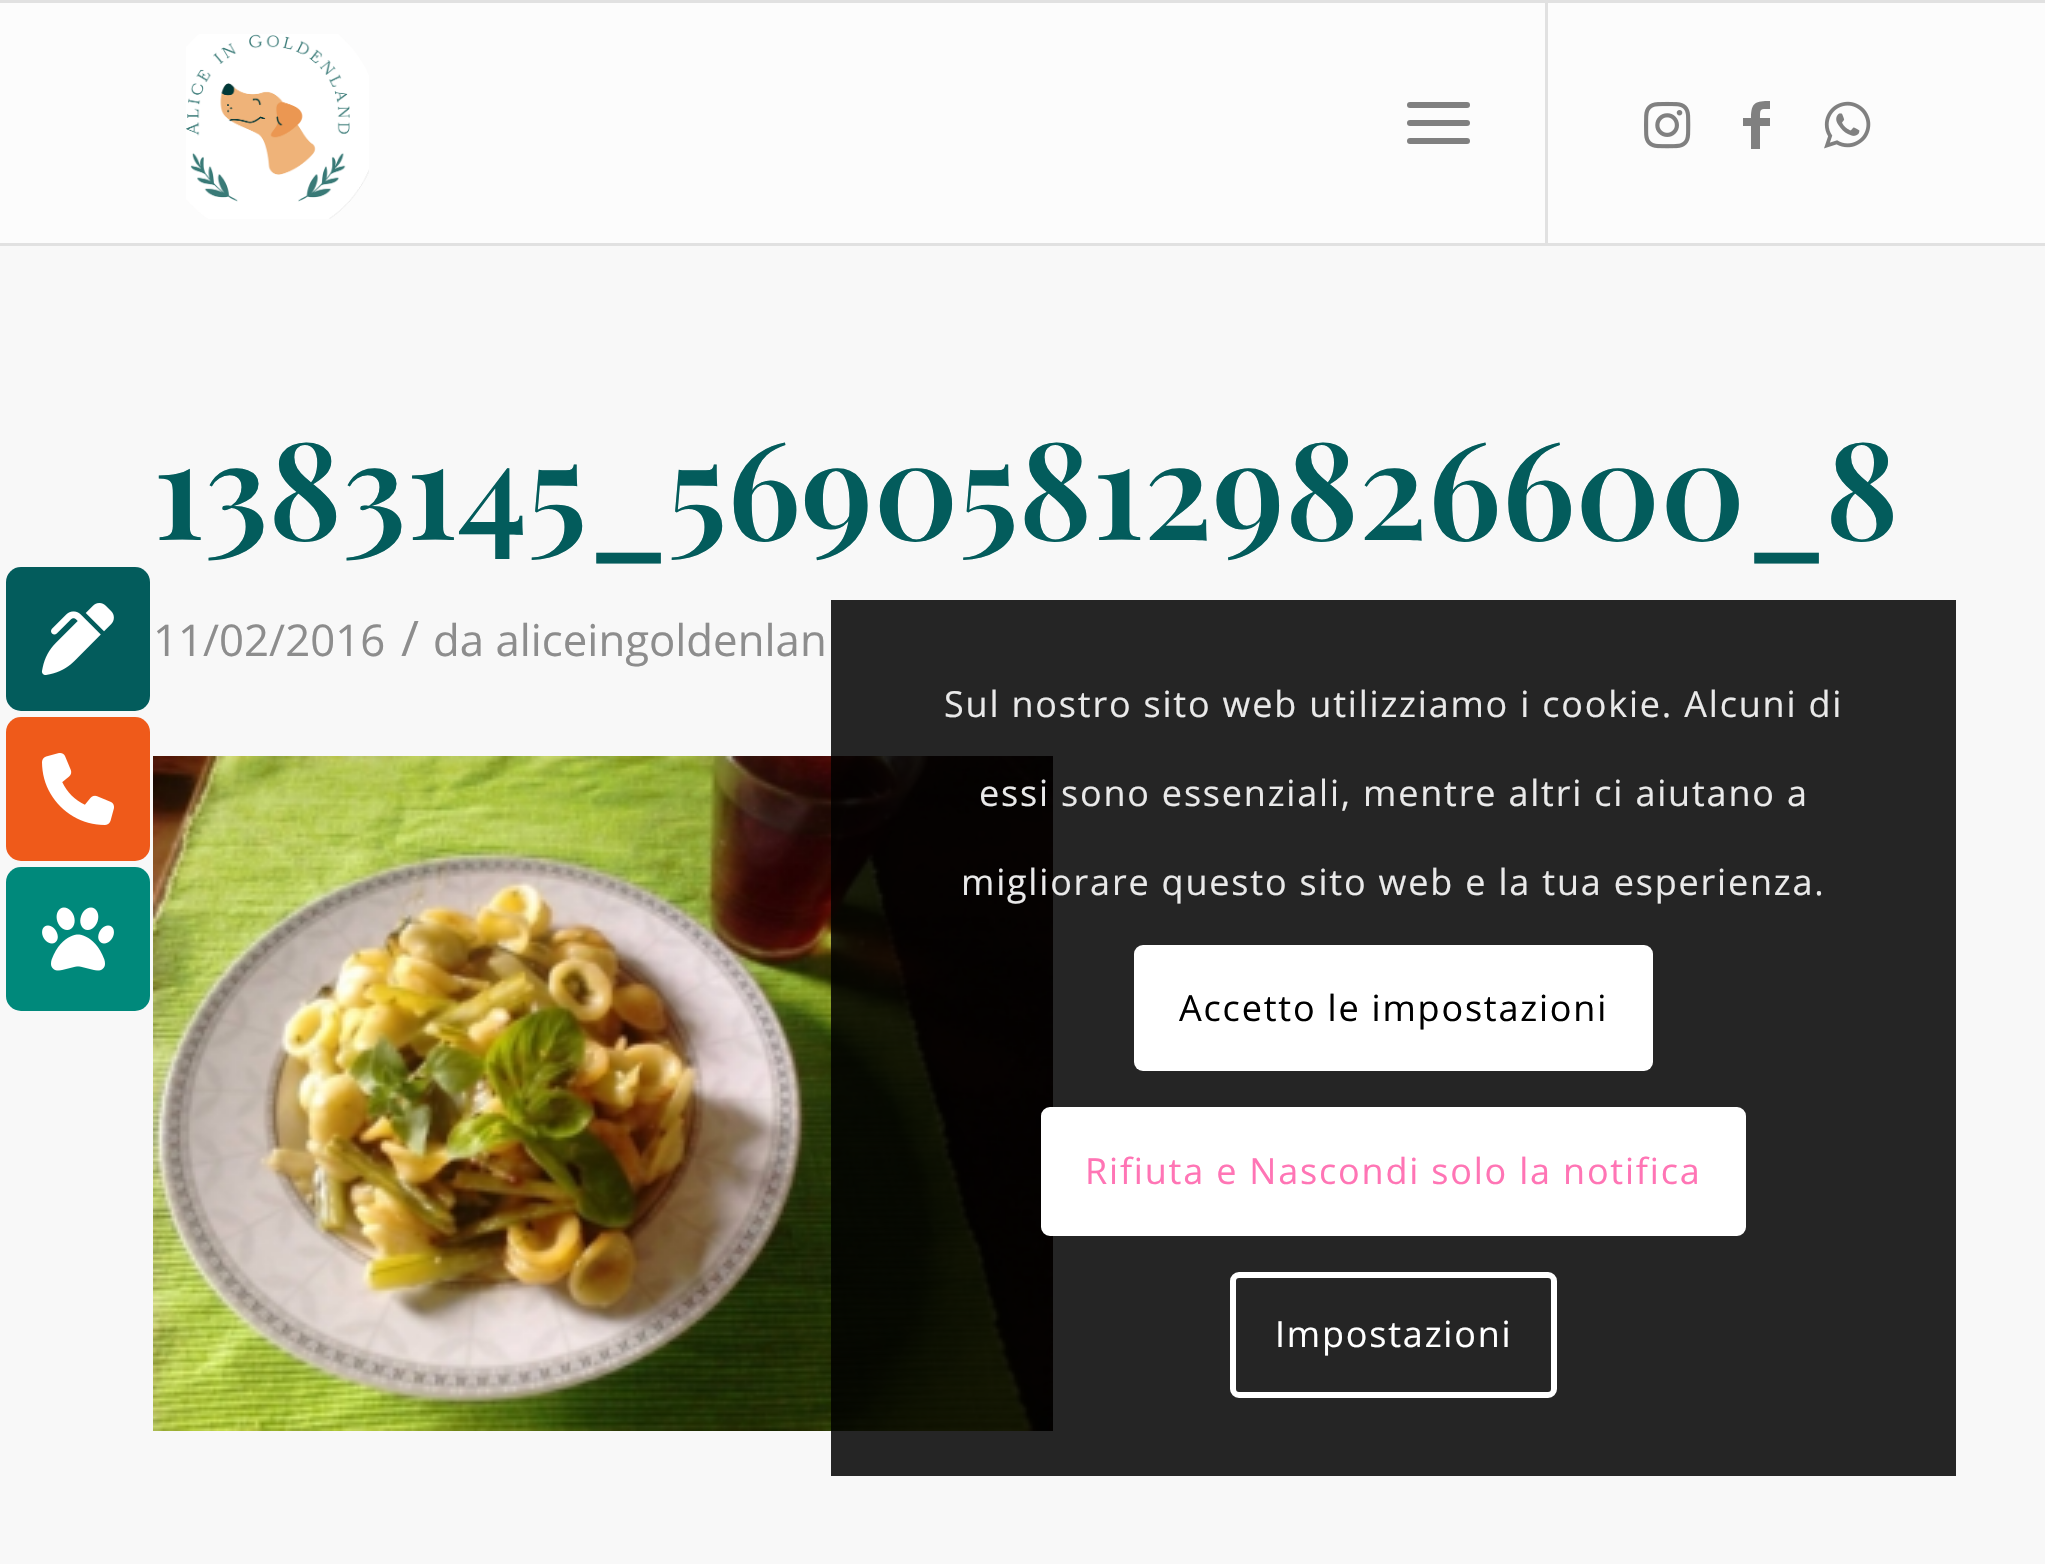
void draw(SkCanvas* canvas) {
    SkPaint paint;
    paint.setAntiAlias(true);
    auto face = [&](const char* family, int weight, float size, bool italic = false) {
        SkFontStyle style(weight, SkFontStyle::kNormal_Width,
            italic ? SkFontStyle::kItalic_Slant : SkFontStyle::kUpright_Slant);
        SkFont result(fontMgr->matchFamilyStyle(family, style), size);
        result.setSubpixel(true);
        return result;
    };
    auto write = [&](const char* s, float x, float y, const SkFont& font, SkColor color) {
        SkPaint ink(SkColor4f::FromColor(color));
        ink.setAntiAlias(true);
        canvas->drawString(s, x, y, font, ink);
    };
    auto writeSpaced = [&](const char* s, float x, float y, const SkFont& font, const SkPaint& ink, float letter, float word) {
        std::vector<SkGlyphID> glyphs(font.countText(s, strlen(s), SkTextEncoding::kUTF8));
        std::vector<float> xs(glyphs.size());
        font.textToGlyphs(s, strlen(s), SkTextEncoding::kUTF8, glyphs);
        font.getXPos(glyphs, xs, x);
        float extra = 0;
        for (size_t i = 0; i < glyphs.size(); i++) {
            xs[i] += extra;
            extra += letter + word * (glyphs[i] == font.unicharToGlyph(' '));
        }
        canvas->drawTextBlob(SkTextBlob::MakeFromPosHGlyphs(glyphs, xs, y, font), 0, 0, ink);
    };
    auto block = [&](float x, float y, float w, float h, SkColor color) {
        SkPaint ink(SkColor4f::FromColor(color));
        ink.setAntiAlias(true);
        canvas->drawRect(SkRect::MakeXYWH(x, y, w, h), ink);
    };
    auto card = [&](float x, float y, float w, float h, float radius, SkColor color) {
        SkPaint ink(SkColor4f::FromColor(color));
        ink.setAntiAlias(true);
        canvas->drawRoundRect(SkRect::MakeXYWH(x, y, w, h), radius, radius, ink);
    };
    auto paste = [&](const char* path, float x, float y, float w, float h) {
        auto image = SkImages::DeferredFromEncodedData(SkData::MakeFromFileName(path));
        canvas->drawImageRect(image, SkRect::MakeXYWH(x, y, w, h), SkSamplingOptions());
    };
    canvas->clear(SkColorSetRGB(248, 248, 248));
    card(6, 567, 144, 144, 15, SkColorSetRGB(3, 92, 92));
    paste("pic1.png", 41, 603, 73, 72);
    card(6, 717, 144, 144, 15, SkColorSetRGB(239, 90, 26));
    paste("pic2.png", 42, 753, 72, 72);
    card(6, 867, 144, 144, 15, SkColorSetRGB(0, 137, 123));
    paste("pic3.png", 42, 907, 72, 64);
    block(0, 0, 2045, 3, SkColorSetRGB(225, 225, 225));
    block(0, 243, 2045, 3, SkColorSetRGB(225, 225, 225));
    block(0, 3, 2045, 240, SkColorSetRGB(252, 252, 252));
    paste("pic4.png", 186, 34, 183, 185);
    block(1545, 3, 3, 240, SkColorSetRGB(225, 225, 225));
    card(1407, 120, 63, 6, 3, SkColorSetRGB(128, 128, 128));
    card(1407, 102, 63, 6, 3, SkColorSetRGB(128, 128, 128));
    card(1407, 138, 63, 6, 3, SkColorSetRGB(128, 128, 128));
    paste("pic5.png", 1644, 101, 47, 48);
    paint.setColor(SkColorSetRGB(128, 128, 128));
    canvas->drawPath(SkPathBuilder().moveTo(1770, 109).cubicTo(1760, 109, 1760, 108, 1760, 118).lineTo(1770, 118).lineTo(1770, 126).lineTo(1760, 126).lineTo(1760, 149).lineTo(1751, 149).lineTo(1751, 126).lineTo(1743, 126).lineTo(1743, 118).lineTo(1751, 118).cubicTo(1751, 102, 1756, 101, 1770, 101).close().detach(), paint);
    paste("pic6.png", 1824, 101, 47, 48);
    canvas->save();
    canvas->clipRect(SkRect::MakeXYWH(153, 396, 1740, 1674));
    auto kFont1 = face("Playfair Display", 600, 135);
    write("1383145_569058129826600_8", 153, 540, kFont1, SkColorSetRGB(3, 92, 92));
    canvas->restore();
    auto kFont2 = face("Open Sans", 400, 43.75f);
    write("11/02/2016", 153, 656, kFont2, SkColorSetRGB(141, 141, 141));
    auto kFont3 = face("Open Sans", 400, 49);
    write("/", 401, 656, kFont3, SkColorSetRGB(141, 141, 141));
    write("da aliceingoldenlan", 433, 656, kFont2, SkColorSetRGB(141, 141, 141));
    paste("pic7.png", 153, 756, 900, 675);
    block(831, 600, 1125, 876, SkColorSetARGB(217, 0, 0, 0));
    auto kFont4 = face("Open Sans", 400, 36);
    paint.setColor(SkColorSetRGB(233, 233, 233));
    writeSpaced("Sul nostro sito web utilizziamo i cookie. Alcuni di", 944, 717, kFont4, paint, 1.8f, 0);
    writeSpaced("essi sono essenziali, mentre altri ci aiutano a", 979, 806, kFont4, paint, 1.8f, 0);
    writeSpaced("migliorare questo sito web e la tua esperienza.", 961, 895, kFont4, paint, 1.8f, 0);
    card(1134, 945, 519, 126, 9, SK_ColorWHITE);
    paint.setColor(SK_ColorBLACK);
    writeSpaced("Accetto le impostazioni", 1179, 1021, kFont4, paint, 1.8f, 0);
    paint.setColor(SK_ColorWHITE);
    canvas->drawRoundRect(SkRect::MakeXYWH(1044, 1110, 699, 123), 6, 6, paint);
    paint.setStyle(SkPaint::kStroke_Style);
    paint.setStrokeWidth(6);
    canvas->drawRoundRect(SkRect::MakeXYWH(1044, 1110, 699, 123), 6, 6, paint);
    paint.setStyle(SkPaint::kFill_Style);
    paint.setColor(SkColorSetRGB(255, 117, 181));
    writeSpaced("Rifiuta e Nascondi solo la notifica", 1085, 1184, kFont4, paint, 1.8f, 0);
    paint.setStyle(SkPaint::kStroke_Style);
    paint.setColor(SK_ColorWHITE);
    canvas->drawRoundRect(SkRect::MakeXYWH(1233, 1275, 321, 120), 6, 6, paint);
    paint.setStyle(SkPaint::kFill_Style);
    writeSpaced("Impostazioni", 1275, 1347, kFont4, paint, 1.8f, 0);
}
